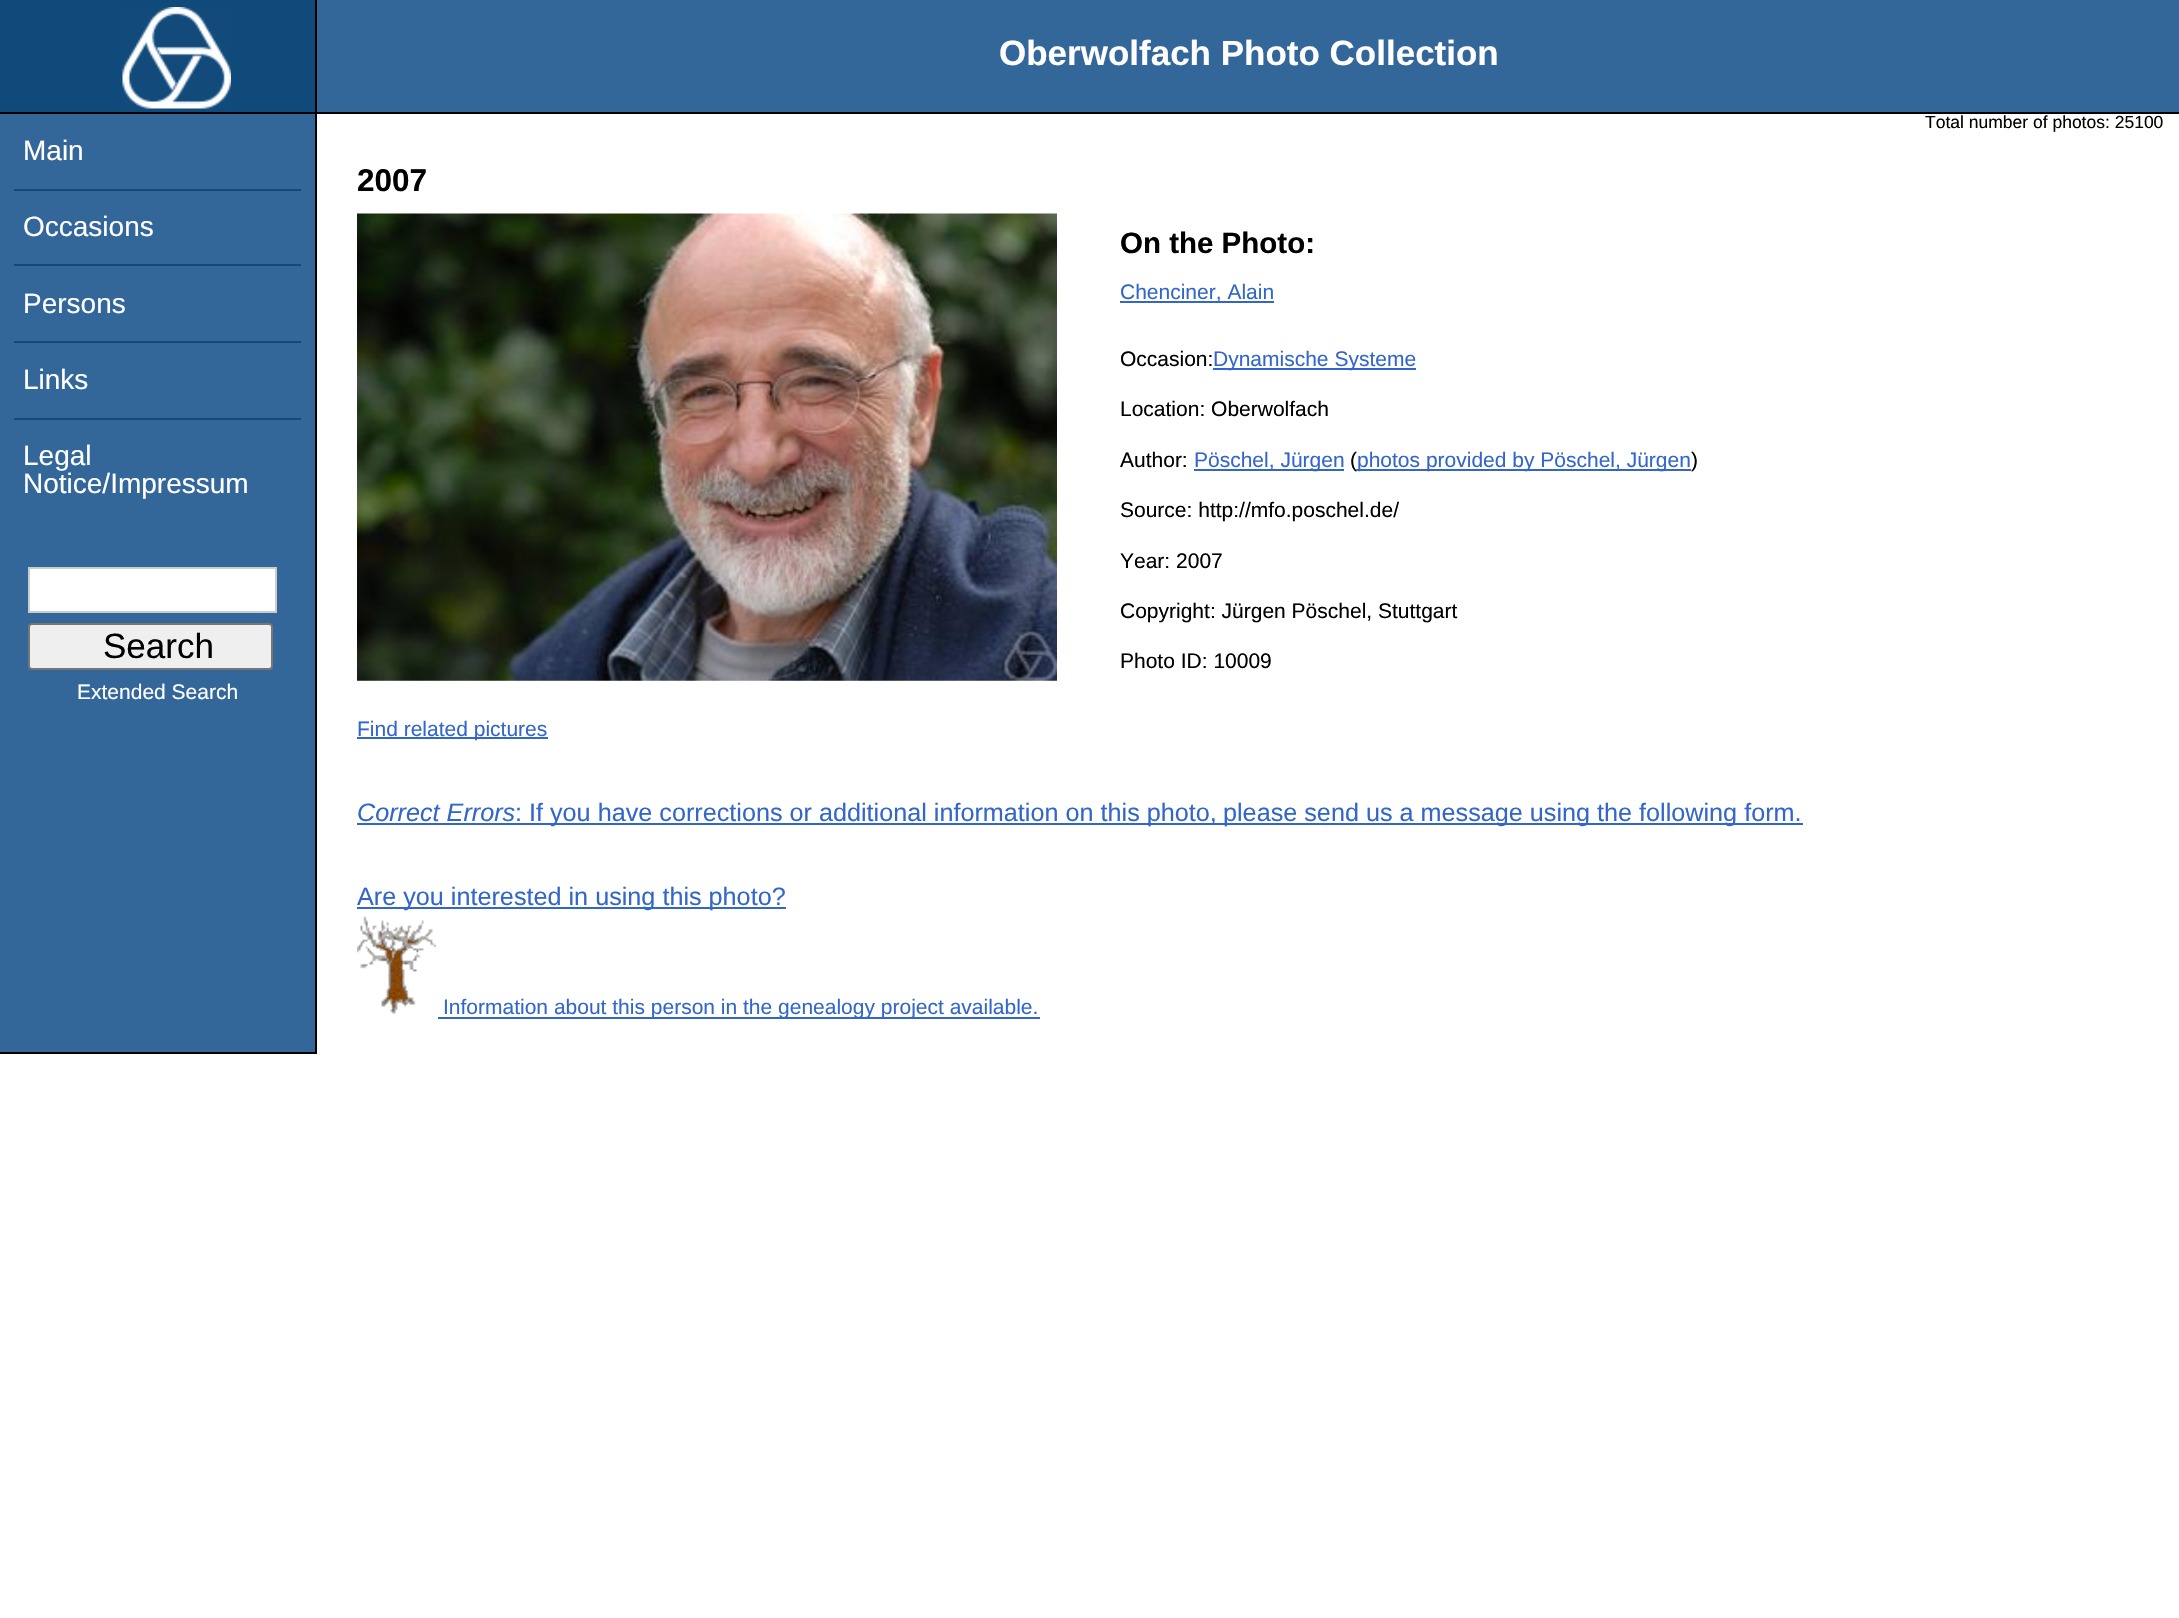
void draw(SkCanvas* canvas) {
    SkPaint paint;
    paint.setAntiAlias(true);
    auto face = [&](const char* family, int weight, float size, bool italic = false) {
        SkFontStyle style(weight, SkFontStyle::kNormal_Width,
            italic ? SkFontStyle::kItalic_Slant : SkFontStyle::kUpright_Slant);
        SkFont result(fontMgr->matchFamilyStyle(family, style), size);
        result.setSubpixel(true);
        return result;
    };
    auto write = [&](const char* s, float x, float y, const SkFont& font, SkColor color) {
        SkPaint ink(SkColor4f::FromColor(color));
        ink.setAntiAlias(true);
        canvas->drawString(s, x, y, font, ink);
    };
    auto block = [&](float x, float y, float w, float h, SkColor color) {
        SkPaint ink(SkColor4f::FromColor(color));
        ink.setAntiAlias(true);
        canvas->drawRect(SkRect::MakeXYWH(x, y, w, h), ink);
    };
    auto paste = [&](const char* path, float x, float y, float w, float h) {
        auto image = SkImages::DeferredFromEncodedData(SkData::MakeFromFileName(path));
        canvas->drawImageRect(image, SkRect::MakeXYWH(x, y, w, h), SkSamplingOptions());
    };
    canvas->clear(SK_ColorWHITE);
    block(317, 0, 1862, 112, SkColorSetRGB(51, 102, 153));
    block(0, 112, 2179, 2, SK_ColorBLACK);
    block(0, 0, 315, 112, SkColorSetRGB(16, 74, 123));
    block(315, 0, 2, 112, SK_ColorBLACK);
    paste("pic1.png", 122, 7, 109, 102);
    auto kFont1 = face("Liberation Sans", 700, 35);
    write("Oberwolfach Photo Collection", 999, 65, kFont1, SK_ColorWHITE);
    auto kFont2 = face("Liberation Sans", 400, 17.5f);
    write("Total number of photos: 25100", 1925, 128, kFont2, SK_ColorBLACK);
    block(0, 114, 315, 938, SkColorSetRGB(51, 102, 153));
    block(315, 114, 2, 940, SK_ColorBLACK);
    block(0, 1052, 317, 2, SK_ColorBLACK);
    auto kFont3 = face("Liberation Sans", 400, 28);
    write("Main", 23, 160, kFont3, SK_ColorWHITE);
    block(14, 189, 287, 2, SkColorSetRGB(16, 74, 123));
    write("Occasions", 23, 236, kFont3, SK_ColorWHITE);
    block(14, 264, 287, 2, SkColorSetRGB(16, 74, 123));
    write("Persons", 23, 313, kFont3, SK_ColorWHITE);
    block(14, 341, 287, 2, SkColorSetRGB(16, 74, 123));
    write("Links", 23, 389, kFont3, SK_ColorWHITE);
    block(14, 418, 287, 2, SkColorSetRGB(16, 74, 123));
    write("Legal", 23, 465, kFont3, SK_ColorWHITE);
    write("Notice/Impressum", 23, 493, kFont3, SK_ColorWHITE);
    paint.setColor(SK_ColorWHITE);
    canvas->drawRect(SkRect::MakeXYWH(29, 568, 247, 44), paint);
    paint.setStyle(SkPaint::kStroke_Style);
    paint.setStrokeWidth(2);
    paint.setColor(SkColorSetRGB(204, 204, 204));
    canvas->drawRect(SkRect::MakeXYWH(29, 568, 247, 44), paint);
    paint.setStyle(SkPaint::kFill_Style);
    paint.setColor(SkColorSetRGB(239, 239, 239));
    canvas->drawRoundRect(SkRect::MakeXYWH(29, 624, 243, 45), 3, 3, paint);
    paint.setStyle(SkPaint::kStroke_Style);
    paint.setColor(SkColorSetRGB(118, 118, 118));
    canvas->drawRoundRect(SkRect::MakeXYWH(29, 624, 243, 45), 3, 3, paint);
    auto kFont4 = face("Liberation Sans", 400, 35);
    write("Search", 103, 658, kFont4, SK_ColorBLACK);
    auto kFont5 = face("Liberation Sans", 400, 21);
    write("Extended Search", 77, 699, kFont5, SK_ColorWHITE);
    auto kFont6 = face("Liberation Sans", 700, 31.5f);
    write("2007", 357, 191, kFont6, SK_ColorBLACK);
    paste("pic2.png", 357, 213, 700, 468);
    auto kFont7 = face("Liberation Sans", 700, 29.5f);
    write("On the Photo:", 1120, 253, kFont7, SK_ColorBLACK);
    block(1120, 301, 154, 2, SkColorSetRGB(51, 102, 204));
    write("Chenciner, Alain", 1120, 299, kFont5, SkColorSetRGB(51, 102, 204));
    write("Occasion:", 1120, 366, kFont5, SK_ColorBLACK);
    block(1213, 368, 203, 2, SkColorSetRGB(51, 102, 204));
    write("Dynamische Systeme", 1213, 366, kFont5, SkColorSetRGB(51, 102, 204));
    write("Location: Oberwolfach", 1120, 416, kFont5, SK_ColorBLACK);
    write("Author:", 1120, 467, kFont5, SK_ColorBLACK);
    block(1194, 469, 150, 2, SkColorSetRGB(51, 102, 204));
    write("Pöschel, Jürgen", 1194, 467, kFont5, SkColorSetRGB(51, 102, 204));
    write("(", 1350, 467, kFont5, SK_ColorBLACK);
    block(1356, 469, 335, 2, SkColorSetRGB(51, 102, 204));
    write("photos provided by Pöschel, Jürgen", 1357, 467, kFont5, SkColorSetRGB(51, 102, 204));
    write(")", 1691, 467, kFont5, SK_ColorBLACK);
    write("Source: http://mfo.poschel.de/", 1120, 517, kFont5, SK_ColorBLACK);
    write("Year: 2007", 1120, 568, kFont5, SK_ColorBLACK);
    write("Copyright: Jürgen Pöschel, Stuttgart", 1120, 618, kFont5, SK_ColorBLACK);
    write("Photo ID: 10009", 1120, 668, kFont5, SK_ColorBLACK);
    block(357, 737, 191, 2, SkColorSetRGB(51, 102, 204));
    write("Find related pictures", 357, 736, kFont5, SkColorSetRGB(51, 102, 204));
    auto kFont8 = face("Liberation Sans", 400, 25.2f, true);
    write("Correct Errors", 357, 821, kFont8, SkColorSetRGB(51, 102, 204));
    block(357, 823, 1446, 2, SkColorSetRGB(51, 102, 204));
    auto kFont9 = face("Liberation Sans", 400, 25.2f);
    write(": If you have corrections or additional information on this photo,", 515, 821, kFont9, SkColorSetRGB(51, 102, 204));
    write("please send us a message using the following form.", 1223, 821, kFont9, SkColorSetRGB(51, 102, 204));
    block(357, 907, 429, 2, SkColorSetRGB(51, 102, 204));
    write("Are you interested in using this photo?", 357, 905, kFont9, SkColorSetRGB(51, 102, 204));
    paste("pic3.png", 357, 916, 80, 98);
    block(438, 1017, 602, 2, SkColorSetRGB(51, 102, 204));
    write("Information about this person in the genealogy project available.", 443, 1014, kFont5, SkColorSetRGB(51, 102, 204));
}
